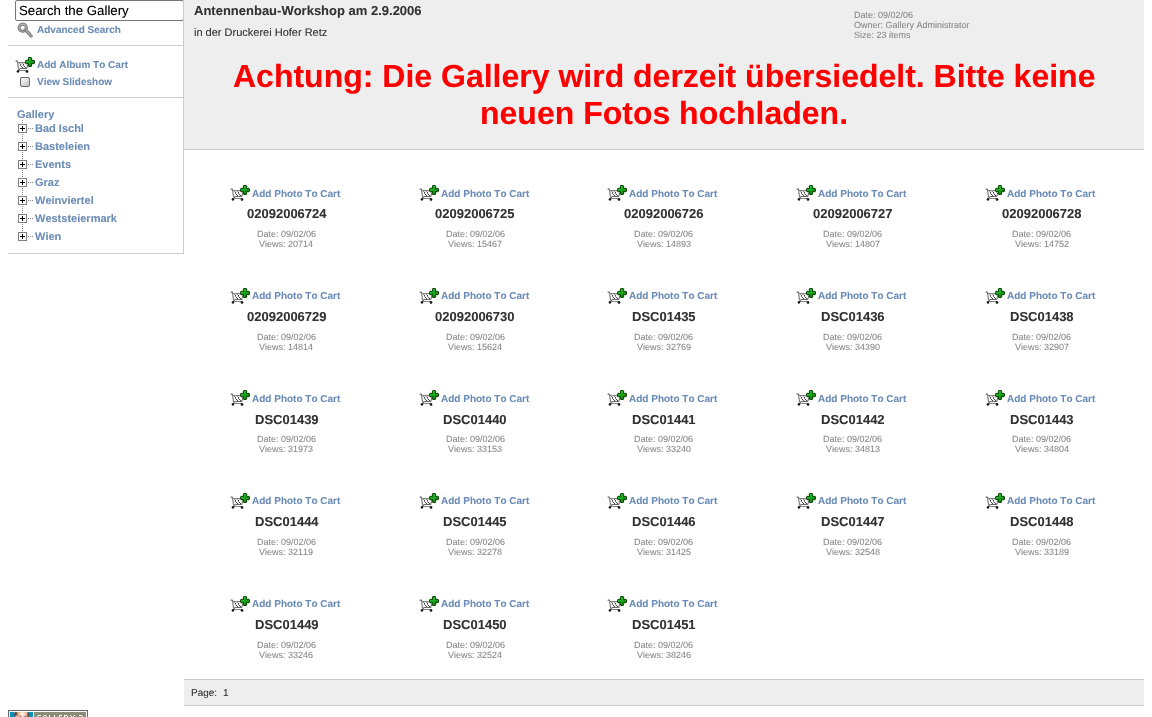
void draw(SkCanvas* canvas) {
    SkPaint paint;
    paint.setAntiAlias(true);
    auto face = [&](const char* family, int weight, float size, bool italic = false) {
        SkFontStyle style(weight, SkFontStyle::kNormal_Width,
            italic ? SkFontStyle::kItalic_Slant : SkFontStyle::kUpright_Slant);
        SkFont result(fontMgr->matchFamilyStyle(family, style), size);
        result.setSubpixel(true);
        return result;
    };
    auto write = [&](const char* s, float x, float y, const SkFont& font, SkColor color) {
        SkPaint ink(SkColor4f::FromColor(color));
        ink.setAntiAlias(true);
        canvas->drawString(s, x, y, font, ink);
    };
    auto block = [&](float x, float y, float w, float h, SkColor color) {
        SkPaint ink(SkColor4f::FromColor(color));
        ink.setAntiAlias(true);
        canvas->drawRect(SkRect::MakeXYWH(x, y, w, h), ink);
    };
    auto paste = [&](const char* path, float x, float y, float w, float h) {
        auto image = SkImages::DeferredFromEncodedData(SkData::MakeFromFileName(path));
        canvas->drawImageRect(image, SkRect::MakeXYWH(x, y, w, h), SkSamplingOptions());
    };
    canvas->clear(SK_ColorWHITE);
    block(183, 0, 1, 254, SkColorSetRGB(204, 204, 204));
    block(8, 45, 175, 1, SkColorSetRGB(204, 204, 204));
    canvas->save();
    canvas->clipRect(SkRect::MakeXYWH(8, 0, 175, 254));
    paint.setStyle(SkPaint::kStroke_Style);
    paint.setStrokeWidth(1);
    paint.setColor(SkColorSetRGB(118, 118, 118));
    canvas->drawRoundRect(SkRect::MakeXYWH(15.5f, 0.5f, 168, 20), 1.5f, 1.5f, paint);
    canvas->restore();
    auto kFont1 = face("Liberation Sans", 400, 13.25f);
    write("Search the Gallery", 19, 15, kFont1, SK_ColorBLACK);
    paste("pic1.png", 17, 22, 16, 16);
    auto kFont2 = face("Liberation Sans", 700, 10);
    write("Advanced Search", 37, 33, kFont2, SkColorSetRGB(107, 140, 183));
    block(8, 97, 175, 1, SkColorSetRGB(204, 204, 204));
    paste("pic2.png", 15, 57, 20, 16);
    write("Add Album To Cart", 37, 68, kFont2, SkColorSetRGB(107, 140, 183));
    paste("pic3.png", 20, 77, 10, 10);
    write("View Slideshow", 37, 85, kFont2, SkColorSetRGB(107, 140, 183));
    block(8, 253, 175, 1, SkColorSetRGB(204, 204, 204));
    auto kFont3 = face("Liberation Sans", 700, 11);
    write("Gallery", 17, 118, kFont3, SkColorSetRGB(107, 140, 183));
    paste("pic4.png", 18, 120, 15, 17);
    write("Bad Ischl", 35, 132, kFont3, SkColorSetRGB(107, 140, 183));
    paste("pic4.png", 18, 138, 15, 17);
    write("Basteleien", 35, 150, kFont3, SkColorSetRGB(107, 140, 183));
    paste("pic4.png", 18, 156, 15, 17);
    write("Events", 35, 168, kFont3, SkColorSetRGB(107, 140, 183));
    paste("pic4.png", 18, 174, 15, 17);
    write("Graz", 35, 186, kFont3, SkColorSetRGB(107, 140, 183));
    paste("pic4.png", 18, 192, 15, 17);
    write("Weinviertel", 35, 204, kFont3, SkColorSetRGB(107, 140, 183));
    paste("pic4.png", 18, 210, 15, 17);
    write("Weststeiermark", 35, 222, kFont3, SkColorSetRGB(107, 140, 183));
    paste("pic5.png", 18, 228, 15, 13);
    write("Wien", 35, 240, kFont3, SkColorSetRGB(107, 140, 183));
    block(184, 0, 960, 149, SkColorSetRGB(238, 238, 238));
    block(184, 149, 960, 1, SkColorSetRGB(204, 204, 204));
    auto kFont4 = face("Liberation Sans", 700, 13);
    write("Antennenbau-Workshop am 2.9.2006", 194, 15, kFont4, SkColorSetRGB(51, 51, 51));
    auto kFont5 = face("Liberation Sans", 400, 11);
    write("in der Druckerei Hofer Retz", 194, 36, kFont5, SkColorSetRGB(51, 51, 51));
    auto kFont6 = face("Liberation Sans", 400, 9);
    write("Date: 09/02/06", 854, 18, kFont6, SkColorSetRGB(136, 136, 136));
    write("Owner: Gallery Administrator", 854, 28, kFont6, SkColorSetRGB(136, 136, 136));
    write("Size: 23 items", 854, 38, kFont6, SkColorSetRGB(136, 136, 136));
    auto kFont7 = face("Liberation Sans", 700, 32);
    write("Achtung: Die Gallery wird derzeit übersiedelt. Bitte keine", 233, 87, kFont7, SkColorSetRGB(255, 0, 0));
    write("neuen Fotos hochladen.", 480, 124, kFont7, SkColorSetRGB(255, 0, 0));
    block(184, 679, 960, 1, SkColorSetRGB(204, 204, 204));
    paste("pic2.png", 230, 185, 20, 16);
    write("Add Photo To Cart", 252, 197, kFont2, SkColorSetRGB(107, 140, 183));
    write("02092006724", 247, 218, kFont4, SkColorSetRGB(51, 51, 51));
    write("Date: 09/02/06", 257, 237, kFont6, SkColorSetRGB(136, 136, 136));
    write("Views: 20714", 259, 247, kFont6, SkColorSetRGB(136, 136, 136));
    paste("pic2.png", 419, 185, 20, 16);
    write("Add Photo To Cart", 441, 197, kFont2, SkColorSetRGB(107, 140, 183));
    write("02092006725", 435, 218, kFont4, SkColorSetRGB(51, 51, 51));
    write("Date: 09/02/06", 446, 237, kFont6, SkColorSetRGB(136, 136, 136));
    write("Views: 15467", 448, 247, kFont6, SkColorSetRGB(136, 136, 136));
    paste("pic2.png", 607, 185, 20, 16);
    write("Add Photo To Cart", 629, 197, kFont2, SkColorSetRGB(107, 140, 183));
    write("02092006726", 624, 218, kFont4, SkColorSetRGB(51, 51, 51));
    write("Date: 09/02/06", 634, 237, kFont6, SkColorSetRGB(136, 136, 136));
    write("Views: 14893", 637, 247, kFont6, SkColorSetRGB(136, 136, 136));
    paste("pic2.png", 796, 185, 20, 16);
    write("Add Photo To Cart", 818, 197, kFont2, SkColorSetRGB(107, 140, 183));
    write("02092006727", 813, 218, kFont4, SkColorSetRGB(51, 51, 51));
    write("Date: 09/02/06", 823, 237, kFont6, SkColorSetRGB(136, 136, 136));
    write("Views: 14807", 826, 247, kFont6, SkColorSetRGB(136, 136, 136));
    paste("pic2.png", 985, 185, 20, 16);
    write("Add Photo To Cart", 1007, 197, kFont2, SkColorSetRGB(107, 140, 183));
    write("02092006728", 1002, 218, kFont4, SkColorSetRGB(51, 51, 51));
    write("Date: 09/02/06", 1012, 237, kFont6, SkColorSetRGB(136, 136, 136));
    write("Views: 14752", 1015, 247, kFont6, SkColorSetRGB(136, 136, 136));
    paste("pic2.png", 230, 288, 20, 16);
    write("Add Photo To Cart", 252, 299, kFont2, SkColorSetRGB(107, 140, 183));
    write("02092006729", 247, 321, kFont4, SkColorSetRGB(51, 51, 51));
    write("Date: 09/02/06", 257, 340, kFont6, SkColorSetRGB(136, 136, 136));
    write("Views: 14814", 259, 350, kFont6, SkColorSetRGB(136, 136, 136));
    paste("pic2.png", 419, 288, 20, 16);
    write("Add Photo To Cart", 441, 299, kFont2, SkColorSetRGB(107, 140, 183));
    write("02092006730", 435, 321, kFont4, SkColorSetRGB(51, 51, 51));
    write("Date: 09/02/06", 446, 340, kFont6, SkColorSetRGB(136, 136, 136));
    write("Views: 15624", 448, 350, kFont6, SkColorSetRGB(136, 136, 136));
    paste("pic2.png", 607, 288, 20, 16);
    write("Add Photo To Cart", 629, 299, kFont2, SkColorSetRGB(107, 140, 183));
    write("DSC01435", 632, 321, kFont4, SkColorSetRGB(51, 51, 51));
    write("Date: 09/02/06", 634, 340, kFont6, SkColorSetRGB(136, 136, 136));
    write("Views: 32769", 637, 350, kFont6, SkColorSetRGB(136, 136, 136));
    paste("pic2.png", 796, 288, 20, 16);
    write("Add Photo To Cart", 818, 299, kFont2, SkColorSetRGB(107, 140, 183));
    write("DSC01436", 821, 321, kFont4, SkColorSetRGB(51, 51, 51));
    write("Date: 09/02/06", 823, 340, kFont6, SkColorSetRGB(136, 136, 136));
    write("Views: 34390", 826, 350, kFont6, SkColorSetRGB(136, 136, 136));
    paste("pic2.png", 985, 288, 20, 16);
    write("Add Photo To Cart", 1007, 299, kFont2, SkColorSetRGB(107, 140, 183));
    write("DSC01438", 1010, 321, kFont4, SkColorSetRGB(51, 51, 51));
    write("Date: 09/02/06", 1012, 340, kFont6, SkColorSetRGB(136, 136, 136));
    write("Views: 32907", 1015, 350, kFont6, SkColorSetRGB(136, 136, 136));
    paste("pic2.png", 230, 390, 20, 16);
    write("Add Photo To Cart", 252, 402, kFont2, SkColorSetRGB(107, 140, 183));
    write("DSC01439", 255, 424, kFont4, SkColorSetRGB(51, 51, 51));
    write("Date: 09/02/06", 257, 442, kFont6, SkColorSetRGB(136, 136, 136));
    write("Views: 31973", 259, 452, kFont6, SkColorSetRGB(136, 136, 136));
    paste("pic2.png", 419, 390, 20, 16);
    write("Add Photo To Cart", 441, 402, kFont2, SkColorSetRGB(107, 140, 183));
    write("DSC01440", 443, 424, kFont4, SkColorSetRGB(51, 51, 51));
    write("Date: 09/02/06", 446, 442, kFont6, SkColorSetRGB(136, 136, 136));
    write("Views: 33153", 448, 452, kFont6, SkColorSetRGB(136, 136, 136));
    paste("pic2.png", 607, 390, 20, 16);
    write("Add Photo To Cart", 629, 402, kFont2, SkColorSetRGB(107, 140, 183));
    write("DSC01441", 632, 424, kFont4, SkColorSetRGB(51, 51, 51));
    write("Date: 09/02/06", 634, 442, kFont6, SkColorSetRGB(136, 136, 136));
    write("Views: 33240", 637, 452, kFont6, SkColorSetRGB(136, 136, 136));
    paste("pic2.png", 796, 390, 20, 16);
    write("Add Photo To Cart", 818, 402, kFont2, SkColorSetRGB(107, 140, 183));
    write("DSC01442", 821, 424, kFont4, SkColorSetRGB(51, 51, 51));
    write("Date: 09/02/06", 823, 442, kFont6, SkColorSetRGB(136, 136, 136));
    write("Views: 34813", 826, 452, kFont6, SkColorSetRGB(136, 136, 136));
    paste("pic2.png", 985, 390, 20, 16);
    write("Add Photo To Cart", 1007, 402, kFont2, SkColorSetRGB(107, 140, 183));
    write("DSC01443", 1010, 424, kFont4, SkColorSetRGB(51, 51, 51));
    write("Date: 09/02/06", 1012, 442, kFont6, SkColorSetRGB(136, 136, 136));
    write("Views: 34804", 1015, 452, kFont6, SkColorSetRGB(136, 136, 136));
    paste("pic2.png", 230, 493, 20, 16);
    write("Add Photo To Cart", 252, 504, kFont2, SkColorSetRGB(107, 140, 183));
    write("DSC01444", 255, 526, kFont4, SkColorSetRGB(51, 51, 51));
    write("Date: 09/02/06", 257, 545, kFont6, SkColorSetRGB(136, 136, 136));
    write("Views: 32119", 259, 555, kFont6, SkColorSetRGB(136, 136, 136));
    paste("pic2.png", 419, 493, 20, 16);
    write("Add Photo To Cart", 441, 504, kFont2, SkColorSetRGB(107, 140, 183));
    write("DSC01445", 443, 526, kFont4, SkColorSetRGB(51, 51, 51));
    write("Date: 09/02/06", 446, 545, kFont6, SkColorSetRGB(136, 136, 136));
    write("Views: 32278", 448, 555, kFont6, SkColorSetRGB(136, 136, 136));
    paste("pic2.png", 607, 493, 20, 16);
    write("Add Photo To Cart", 629, 504, kFont2, SkColorSetRGB(107, 140, 183));
    write("DSC01446", 632, 526, kFont4, SkColorSetRGB(51, 51, 51));
    write("Date: 09/02/06", 634, 545, kFont6, SkColorSetRGB(136, 136, 136));
    write("Views: 31425", 637, 555, kFont6, SkColorSetRGB(136, 136, 136));
    paste("pic2.png", 796, 493, 20, 16);
    write("Add Photo To Cart", 818, 504, kFont2, SkColorSetRGB(107, 140, 183));
    write("DSC01447", 821, 526, kFont4, SkColorSetRGB(51, 51, 51));
    write("Date: 09/02/06", 823, 545, kFont6, SkColorSetRGB(136, 136, 136));
    write("Views: 32548", 826, 555, kFont6, SkColorSetRGB(136, 136, 136));
    paste("pic2.png", 985, 493, 20, 16);
    write("Add Photo To Cart", 1007, 504, kFont2, SkColorSetRGB(107, 140, 183));
    write("DSC01448", 1010, 526, kFont4, SkColorSetRGB(51, 51, 51));
    write("Date: 09/02/06", 1012, 545, kFont6, SkColorSetRGB(136, 136, 136));
    write("Views: 33189", 1015, 555, kFont6, SkColorSetRGB(136, 136, 136));
    paste("pic2.png", 230, 596, 20, 16);
    write("Add Photo To Cart", 252, 607, kFont2, SkColorSetRGB(107, 140, 183));
    write("DSC01449", 255, 629, kFont4, SkColorSetRGB(51, 51, 51));
    write("Date: 09/02/06", 257, 648, kFont6, SkColorSetRGB(136, 136, 136));
    write("Views: 33246", 259, 658, kFont6, SkColorSetRGB(136, 136, 136));
    paste("pic2.png", 419, 596, 20, 16);
    write("Add Photo To Cart", 441, 607, kFont2, SkColorSetRGB(107, 140, 183));
    write("DSC01450", 443, 629, kFont4, SkColorSetRGB(51, 51, 51));
    write("Date: 09/02/06", 446, 648, kFont6, SkColorSetRGB(136, 136, 136));
    write("Views: 32524", 448, 658, kFont6, SkColorSetRGB(136, 136, 136));
    paste("pic2.png", 607, 596, 20, 16);
    write("Add Photo To Cart", 629, 607, kFont2, SkColorSetRGB(107, 140, 183));
    write("DSC01451", 632, 629, kFont4, SkColorSetRGB(51, 51, 51));
    write("Date: 09/02/06", 634, 648, kFont6, SkColorSetRGB(136, 136, 136));
    write("Views: 38246", 637, 658, kFont6, SkColorSetRGB(136, 136, 136));
    block(184, 680, 960, 25, SkColorSetRGB(238, 238, 238));
    block(184, 705, 960, 1, SkColorSetRGB(204, 204, 204));
    auto kFont8 = face("Liberation Sans", 400, 10);
    write("Page:", 191, 696, kFont8, SkColorSetRGB(51, 51, 51));
    write("1", 223, 696, kFont8, SkColorSetRGB(51, 51, 51));
    paste("pic6.png", 8, 710, 80, 7);
}
